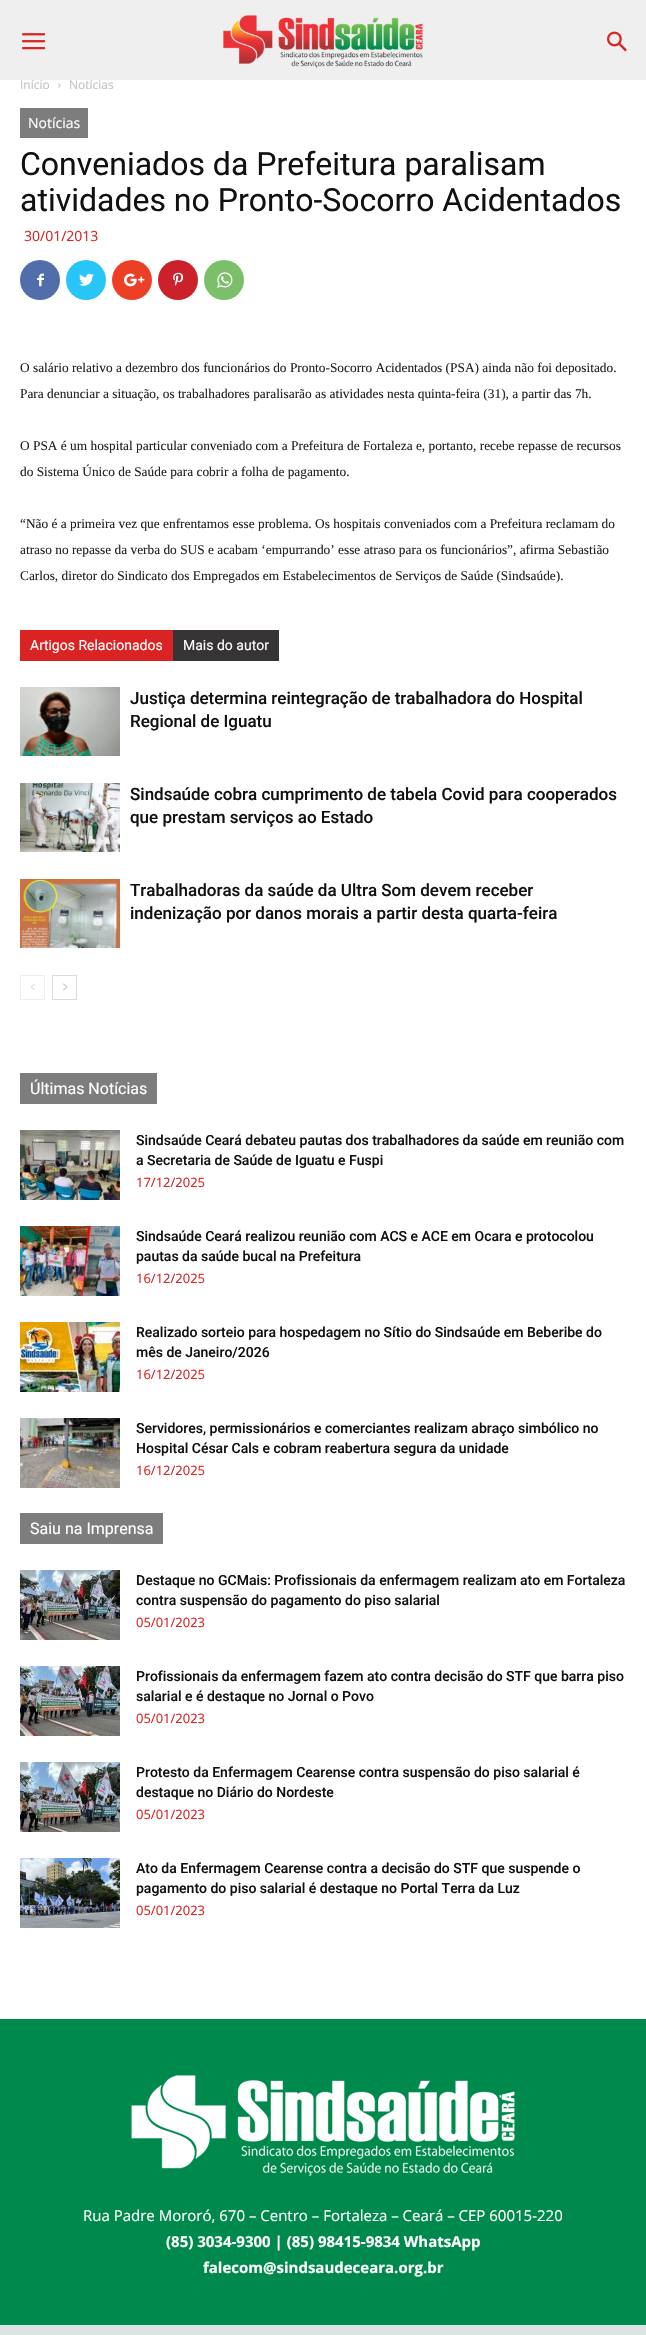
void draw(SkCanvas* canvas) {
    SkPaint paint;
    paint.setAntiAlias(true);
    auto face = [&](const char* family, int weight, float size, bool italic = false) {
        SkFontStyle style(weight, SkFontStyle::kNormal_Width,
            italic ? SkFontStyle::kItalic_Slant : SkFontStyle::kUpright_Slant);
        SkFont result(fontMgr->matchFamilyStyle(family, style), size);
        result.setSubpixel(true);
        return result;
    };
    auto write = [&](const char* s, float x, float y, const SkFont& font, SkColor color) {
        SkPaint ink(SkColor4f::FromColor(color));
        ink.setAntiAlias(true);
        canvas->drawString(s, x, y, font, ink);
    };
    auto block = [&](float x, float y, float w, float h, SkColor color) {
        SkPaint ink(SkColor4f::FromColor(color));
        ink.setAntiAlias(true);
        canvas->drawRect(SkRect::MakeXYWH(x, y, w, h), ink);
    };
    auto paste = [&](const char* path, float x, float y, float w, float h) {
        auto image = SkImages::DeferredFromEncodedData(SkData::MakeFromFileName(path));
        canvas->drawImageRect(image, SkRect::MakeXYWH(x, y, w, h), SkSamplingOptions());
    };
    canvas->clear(SK_ColorWHITE);
    auto kFont1 = face("Open Sans", 400, 12);
    write("Início", 20, 89, kFont1, SkColorSetRGB(195, 195, 195));
    write("Notícias", 69, 89, kFont1, SkColorSetRGB(195, 195, 195));
    block(0, 0, 646, 80, SkColorSetRGB(239, 239, 239));
    paste("pic1.png", 22, 33, 24, 17);
    paste("pic2.png", 223, 15, 200, 53);
    paste("pic3.png", 607, 31, 20, 21);
    paste("pic4.png", 58, 83, 3, 5);
    block(20, 108, 68, 30, SkColorSetRGB(125, 125, 125));
    auto kFont2 = face("Open Sans", 400, 14);
    write("Notícias", 28, 128, kFont2, SK_ColorWHITE);
    auto kFont3 = face("Roboto", 400, 32);
    write("Conveniados da Prefeitura paralisam", 20, 175, kFont3, SkColorSetRGB(17, 17, 17));
    write("atividades no Pronto-Socorro Acidentados", 20, 211, kFont3, SkColorSetRGB(17, 17, 17));
    write("30/01/2013", 24, 241, kFont2, SkColorSetRGB(218, 36, 35));
    paint.setColor(SkColorSetRGB(81, 110, 171));
    canvas->drawCircle(40, 280, 20, paint);
    paste("pic5.png", 37, 273, 7, 14);
    paint.setColor(SkColorSetRGB(41, 197, 246));
    canvas->drawCircle(86, 280, 20, paint);
    paste("pic6.png", 79, 273, 15, 13);
    paint.setColor(SkColorSetRGB(235, 64, 38));
    canvas->drawCircle(132, 280, 20, paint);
    paste("pic7.png", 124, 273, 21, 14);
    paint.setColor(SkColorSetRGB(202, 33, 42));
    canvas->drawCircle(178, 280, 20, paint);
    paste("pic8.png", 173, 272, 11, 14);
    paint.setColor(SkColorSetRGB(123, 191, 106));
    canvas->drawCircle(224, 280, 20, paint);
    paste("pic9.png", 217, 272, 16, 16);
    auto kFont4 = face("Liberation Serif", 400, 13.35f);
    write("O salário relativo a dezembro dos funcionários do Pronto-Socorro Acidentados (PSA) ainda não foi depositado.", 20, 372, kFont4, SkColorSetRGB(34, 34, 34));
    write("Para denunciar a situação, os trabalhadores paralisarão as atividades nesta quinta-feira (31), a partir das 7h.", 20, 398, kFont4, SkColorSetRGB(34, 34, 34));
    write("O PSA é um hospital particular conveniado com a Prefeitura de Fortaleza e, portanto, recebe repasse de recursos", 20, 450, kFont4, SkColorSetRGB(34, 34, 34));
    write("do Sistema Único de Saúde para cobrir a folha de pagamento.", 20, 476, kFont4, SkColorSetRGB(34, 34, 34));
    write("“Não é a primeira vez que enfrentamos esse problema. Os hospitais conveniados com a Prefeitura reclamam do", 20, 528, kFont4, SkColorSetRGB(34, 34, 34));
    write("atraso no repasse da verba do SUS e acabam ‘empurrando’ esse atraso para os funcionários”, afirma Sebastião", 20, 554, kFont4, SkColorSetRGB(34, 34, 34));
    write("Carlos, diretor do Sindicato dos Empregados em Estabelecimentos de Serviços de Saúde (Sindsaúde).", 20, 580, kFont4, SkColorSetRGB(34, 34, 34));
    block(20, 630, 153, 31, SkColorSetRGB(218, 36, 35));
    auto kFont5 = face("Roboto", 400, 14);
    write("Artigos Relacionados", 30, 650, kFont5, SK_ColorWHITE);
    block(173, 630, 106, 31, SkColorSetRGB(55, 52, 53));
    write("Mais do autor", 183, 650, kFont5, SK_ColorWHITE);
    paste("pic10.png", 20, 687, 100, 69);
    auto kFont6 = face("Roboto", 500, 17);
    write("Justiça determina reintegração de trabalhadora do Hospital", 130, 704, kFont6, SkColorSetRGB(17, 17, 17));
    write("Regional de Iguatu", 130, 727, kFont6, SkColorSetRGB(17, 17, 17));
    paste("pic11.png", 20, 783, 100, 69);
    write("Sindsaúde cobra cumprimento de tabela Covid para cooperados", 130, 800, kFont6, SkColorSetRGB(17, 17, 17));
    write("que prestam serviços ao Estado", 130, 823, kFont6, SkColorSetRGB(17, 17, 17));
    paste("pic12.png", 20, 879, 100, 69);
    write("Trabalhadoras da saúde da Ultra Som devem receber", 130, 896, kFont6, SkColorSetRGB(17, 17, 17));
    write("indenização por danos morais a partir desta quarta-feira", 130, 919, kFont6, SkColorSetRGB(17, 17, 17));
    paint.setStyle(SkPaint::kStroke_Style);
    paint.setStrokeWidth(1);
    paint.setColor(SkColorSetRGB(238, 238, 238));
    canvas->drawRect(SkRect::MakeXYWH(20.5f, 975.5f, 24, 24), paint);
    paste("pic13.png", 30, 983, 5, 8);
    paint.setColor(SkColorSetRGB(220, 220, 220));
    canvas->drawRect(SkRect::MakeXYWH(52.5f, 975.5f, 24, 24), paint);
    paste("pic14.png", 63, 983, 5, 8);
    block(20, 1073, 137, 31, SkColorSetRGB(125, 125, 125));
    auto kFont7 = face("Roboto", 400, 16);
    write("Últimas Notícias", 30, 1094, kFont7, SK_ColorWHITE);
    paste("pic15.png", 20, 1130, 100, 70);
    auto kFont8 = face("Roboto", 500, 14);
    write("Sindsaúde Ceará debateu pautas dos trabalhadores da saúde em reunião com", 136, 1145, kFont8, SkColorSetRGB(17, 17, 17));
    write("a Secretaria de Saúde de Iguatu e Fuspi", 136, 1165, kFont8, SkColorSetRGB(17, 17, 17));
    auto kFont9 = face("Open Sans", 400, 13);
    write("17/12/2025", 136, 1187, kFont9, SkColorSetRGB(218, 36, 35));
    paste("pic16.png", 20, 1226, 100, 70);
    write("Sindsaúde Ceará realizou reunião com ACS e ACE em Ocara e protocolou", 136, 1241, kFont8, SkColorSetRGB(17, 17, 17));
    write("pautas da saúde bucal na Prefeitura", 136, 1261, kFont8, SkColorSetRGB(17, 17, 17));
    write("16/12/2025", 136, 1283, kFont9, SkColorSetRGB(218, 36, 35));
    paste("pic17.png", 20, 1322, 100, 70);
    write("Realizado sorteio para hospedagem no Sítio do Sindsaúde em Beberibe do", 136, 1337, kFont8, SkColorSetRGB(17, 17, 17));
    write("mês de Janeiro/2026", 136, 1357, kFont8, SkColorSetRGB(17, 17, 17));
    write("16/12/2025", 136, 1379, kFont9, SkColorSetRGB(218, 36, 35));
    paste("pic18.png", 20, 1418, 100, 70);
    write("Servidores, permissionários e comerciantes realizam abraço simbólico no", 136, 1433, kFont8, SkColorSetRGB(17, 17, 17));
    write("Hospital César Cals e cobram reabertura segura da unidade", 136, 1453, kFont8, SkColorSetRGB(17, 17, 17));
    write("16/12/2025", 136, 1475, kFont9, SkColorSetRGB(218, 36, 35));
    block(20, 1513, 143, 31, SkColorSetRGB(125, 125, 125));
    write("Saiu na Imprensa", 30, 1534, kFont7, SK_ColorWHITE);
    paste("pic19.png", 20, 1570, 100, 70);
    write("Destaque no GCMais: Profissionais da enfermagem realizam ato em Fortaleza", 136, 1585, kFont8, SkColorSetRGB(17, 17, 17));
    write("contra suspensão do pagamento do piso salarial", 136, 1605, kFont8, SkColorSetRGB(17, 17, 17));
    write("05/01/2023", 136, 1627, kFont9, SkColorSetRGB(218, 36, 35));
    paste("pic20.png", 20, 1666, 100, 70);
    write("Profissionais da enfermagem fazem ato contra decisão do STF que barra piso", 136, 1681, kFont8, SkColorSetRGB(17, 17, 17));
    write("salarial e é destaque no Jornal o Povo", 136, 1701, kFont8, SkColorSetRGB(17, 17, 17));
    write("05/01/2023", 136, 1723, kFont9, SkColorSetRGB(218, 36, 35));
    paste("pic21.png", 20, 1762, 100, 70);
    write("Protesto da Enfermagem Cearense contra suspensão do piso salarial é", 136, 1777, kFont8, SkColorSetRGB(17, 17, 17));
    write("destaque no Diário do Nordeste", 136, 1797, kFont8, SkColorSetRGB(17, 17, 17));
    write("05/01/2023", 136, 1819, kFont9, SkColorSetRGB(218, 36, 35));
    paste("pic22.png", 20, 1858, 100, 70);
    write("Ato da Enfermagem Cearense contra a decisão do STF que suspende o", 136, 1873, kFont8, SkColorSetRGB(17, 17, 17));
    write("pagamento do piso salarial é destaque no Portal Terra da Luz", 136, 1893, kFont8, SkColorSetRGB(17, 17, 17));
    write("05/01/2023", 136, 1915, kFont9, SkColorSetRGB(218, 36, 35));
    block(0, 2019, 646, 306, SkColorSetRGB(0, 137, 77));
    paste("pic23.png", 131, 2075, 384, 101);
    auto kFont10 = face("Open Sans", 400, 15);
    write("Rua Padre Mororó, 670 – Centro – Fortaleza – Ceará – CEP 60015-220", 83, 2221, kFont10, SK_ColorWHITE);
    auto kFont11 = face("Open Sans", 700, 15);
    write("(85) 3034-9300 | (85) 98415-9834 WhatsApp", 166, 2247, kFont11, SK_ColorWHITE);
    write("falecom@sindsaudeceara.org.br", 203, 2273, kFont11, SK_ColorWHITE);
    block(0, 2325, 646, 10, SkColorSetRGB(221, 226, 226));
}
